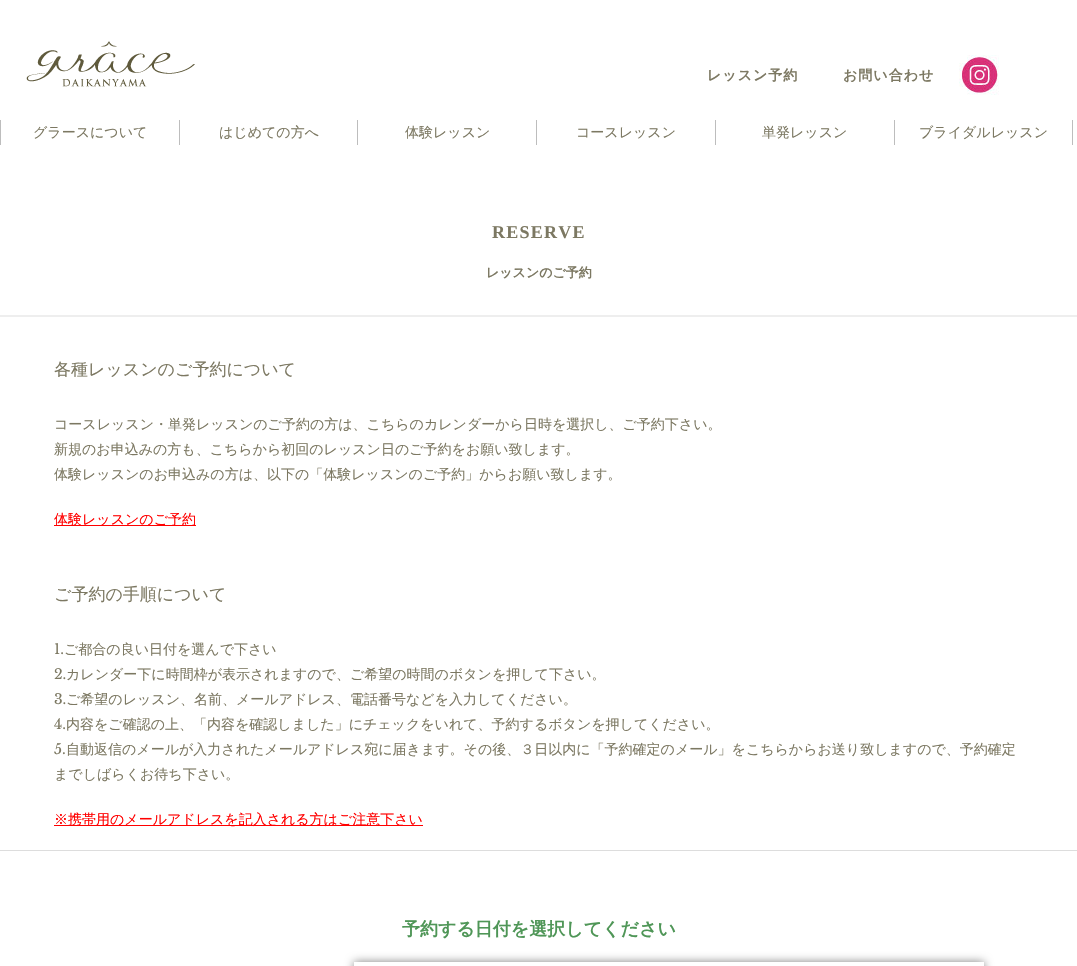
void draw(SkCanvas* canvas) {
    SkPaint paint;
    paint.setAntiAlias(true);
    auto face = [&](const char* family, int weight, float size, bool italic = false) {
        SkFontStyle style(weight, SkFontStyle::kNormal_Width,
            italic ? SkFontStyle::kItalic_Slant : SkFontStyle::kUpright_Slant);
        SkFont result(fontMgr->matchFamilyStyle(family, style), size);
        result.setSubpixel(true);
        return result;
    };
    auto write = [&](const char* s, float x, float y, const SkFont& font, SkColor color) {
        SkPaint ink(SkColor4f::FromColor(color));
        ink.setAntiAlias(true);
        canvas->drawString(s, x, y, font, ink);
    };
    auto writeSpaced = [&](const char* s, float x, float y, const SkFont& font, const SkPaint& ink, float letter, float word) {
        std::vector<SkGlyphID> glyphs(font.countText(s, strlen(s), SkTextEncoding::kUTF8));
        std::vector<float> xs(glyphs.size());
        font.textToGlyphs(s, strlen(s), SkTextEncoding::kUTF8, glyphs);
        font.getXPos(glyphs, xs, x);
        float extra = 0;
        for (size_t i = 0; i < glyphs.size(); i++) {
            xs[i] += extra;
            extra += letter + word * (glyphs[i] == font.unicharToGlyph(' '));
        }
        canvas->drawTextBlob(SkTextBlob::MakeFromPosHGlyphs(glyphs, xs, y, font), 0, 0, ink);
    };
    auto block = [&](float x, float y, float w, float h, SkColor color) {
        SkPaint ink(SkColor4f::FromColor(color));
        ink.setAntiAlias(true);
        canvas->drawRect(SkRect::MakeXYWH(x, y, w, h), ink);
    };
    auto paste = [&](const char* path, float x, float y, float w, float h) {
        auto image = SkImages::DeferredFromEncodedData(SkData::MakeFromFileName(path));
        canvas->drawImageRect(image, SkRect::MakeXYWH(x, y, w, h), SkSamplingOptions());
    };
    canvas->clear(SK_ColorWHITE);
    paste("pic1.png", 26, 41, 169, 46);
    auto kFont1 = face("WenQuanYi Zen Hei", 700, 14);
    paint.setColor(SkColorSetRGB(124, 120, 98));
    writeSpaced("レッスン予約", 707, 80, kFont1, paint, 1, 0);
    writeSpaced("お問い合わせ", 843, 80, kFont1, paint, 1, 0);
    paste("pic2.png", 959, 55, 40, 40);
    block(0, 120, 1, 25, SkColorSetRGB(189, 189, 189));
    auto kFont2 = face("WenQuanYi Zen Hei", 500, 14);
    write("グラースについて", 33, 137, kFont2, SkColorSetRGB(124, 120, 98));
    block(179, 120, 1, 25, SkColorSetRGB(189, 189, 189));
    write("はじめての方へ", 219, 137, kFont2, SkColorSetRGB(124, 120, 98));
    block(357, 120, 1, 25, SkColorSetRGB(189, 189, 189));
    write("体験レッスン", 405, 137, kFont2, SkColorSetRGB(124, 120, 98));
    block(536, 120, 1, 25, SkColorSetRGB(189, 189, 189));
    write("コースレッスン", 576, 137, kFont2, SkColorSetRGB(124, 120, 98));
    block(715, 120, 1, 25, SkColorSetRGB(189, 189, 189));
    write("単発レッスン", 762, 137, kFont2, SkColorSetRGB(124, 120, 98));
    block(1072, 120, 1, 25, SkColorSetRGB(189, 189, 189));
    block(894, 120, 1, 25, SkColorSetRGB(189, 189, 189));
    write("ブライダルレッスン", 919, 137, kFont2, SkColorSetRGB(124, 120, 98));
    block(0, 315, 1077, 2, SkColorSetRGB(238, 238, 238));
    auto kFont3 = face("Liberation Serif", 700, 18);
    writeSpaced("RESERVE", 492, 238, kFont3, paint, 1.25f, 0);
    auto kFont4 = face("WenQuanYi Zen Hei", 700, 13);
    write("レッスンのご予約", 486, 277, kFont4, SkColorSetRGB(124, 120, 98));
    auto kFont5 = face("WenQuanYi Zen Hei", 500, 17);
    write("各種レッスンのご予約について", 54, 375, kFont5, SkColorSetRGB(124, 120, 98));
    write("コースレッスン・単発レッスンのご予約の方は、こちらのカレンダーから日時を選択し、ご予約下さい。", 54, 429, kFont2, SkColorSetRGB(124, 120, 98));
    write("新規のお申込みの方も、こちらから初回のレッスン日のご予約をお願い致します。", 54, 454, kFont2, SkColorSetRGB(124, 120, 98));
    write("体験レッスンのお申込みの方は、以下の「体験レッスンのご予約」からお願い致します。", 54, 479, kFont2, SkColorSetRGB(124, 120, 98));
    block(54, 525, 142, 1, SkColorSetRGB(255, 0, 0));
    write("体験レッスンのご予約", 54, 524, kFont2, SkColorSetRGB(255, 0, 0));
    write("ご予約の手順について", 54, 600, kFont5, SkColorSetRGB(124, 120, 98));
    auto kFont6 = face("Libre Baskerville", 400, 14);
    write("1.", 54, 654, kFont6, SkColorSetRGB(124, 120, 98));
    write("ご都合の良い日付を選んで下さい", 64, 654, kFont2, SkColorSetRGB(124, 120, 98));
    write("2.", 54, 679, kFont6, SkColorSetRGB(124, 120, 98));
    write("カレンダー下に時間枠が表示されますので、ご希望の時間のボタンを押して下さい。", 66, 679, kFont2, SkColorSetRGB(124, 120, 98));
    write("3.", 54, 704, kFont6, SkColorSetRGB(124, 120, 98));
    write("ご希望のレッスン、名前、メールアドレス、電話番号などを入力してください。", 66, 704, kFont2, SkColorSetRGB(124, 120, 98));
    write("4.", 54, 729, kFont6, SkColorSetRGB(124, 120, 98));
    write("内容をご確認の上、「内容を確認しました」にチェックをいれて、予約するボタンを押してください。", 66, 729, kFont2, SkColorSetRGB(124, 120, 98));
    write("5.", 54, 754, kFont6, SkColorSetRGB(124, 120, 98));
    write("自動返信のメールが入力されたメールアドレス宛に届きます。その後、３日以内に「予約確定のメール」をこちらからお送り致しますので、予約確定", 66, 754, kFont2, SkColorSetRGB(124, 120, 98));
    write("までしばらくお待ち下さい。", 54, 779, kFont2, SkColorSetRGB(124, 120, 98));
    block(54, 825, 369, 1, SkColorSetRGB(255, 0, 0));
    write("※携帯用のメールアドレスを記入される方はご注意下さい", 54, 824, kFont2, SkColorSetRGB(255, 0, 0));
    block(0, 850, 1077, 1, SkColorSetRGB(221, 221, 221));
    auto kFont7 = face("WenQuanYi Zen Hei", 700, 18);
    write("予約する日付を選択してください", 402, 935, kFont7, SkColorSetRGB(79, 150, 87));
    paint.setColor(SkColorSetARGB(128, 0, 0, 0));
    paint.setMaskFilter(SkMaskFilter::MakeBlur(kNormal_SkBlurStyle, 5));
    canvas->drawRect(SkRect::MakeXYWH(354, 962, 630, 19), paint);
    paint.setMaskFilter(nullptr);
    block(354, 962, 630, 4, SK_ColorWHITE);
}
